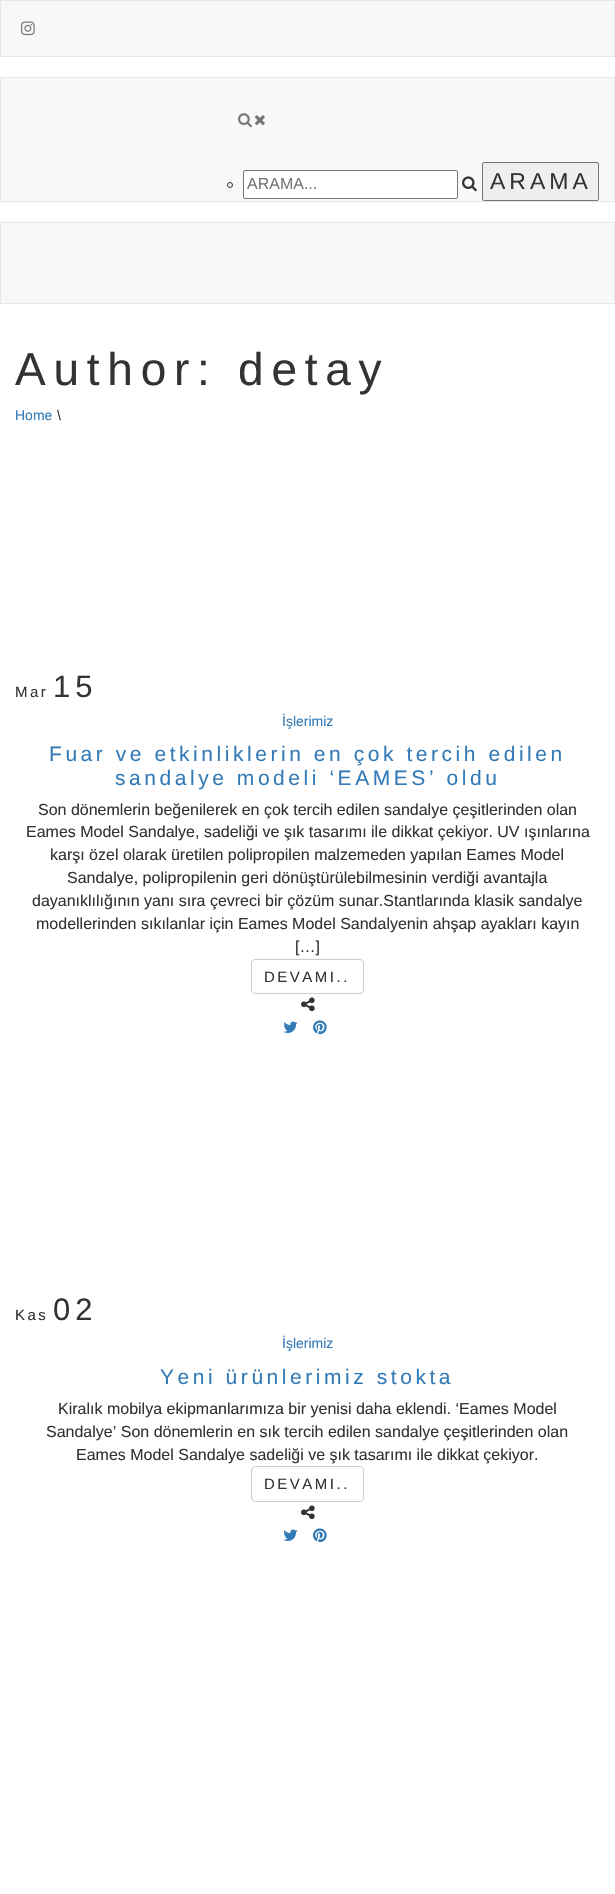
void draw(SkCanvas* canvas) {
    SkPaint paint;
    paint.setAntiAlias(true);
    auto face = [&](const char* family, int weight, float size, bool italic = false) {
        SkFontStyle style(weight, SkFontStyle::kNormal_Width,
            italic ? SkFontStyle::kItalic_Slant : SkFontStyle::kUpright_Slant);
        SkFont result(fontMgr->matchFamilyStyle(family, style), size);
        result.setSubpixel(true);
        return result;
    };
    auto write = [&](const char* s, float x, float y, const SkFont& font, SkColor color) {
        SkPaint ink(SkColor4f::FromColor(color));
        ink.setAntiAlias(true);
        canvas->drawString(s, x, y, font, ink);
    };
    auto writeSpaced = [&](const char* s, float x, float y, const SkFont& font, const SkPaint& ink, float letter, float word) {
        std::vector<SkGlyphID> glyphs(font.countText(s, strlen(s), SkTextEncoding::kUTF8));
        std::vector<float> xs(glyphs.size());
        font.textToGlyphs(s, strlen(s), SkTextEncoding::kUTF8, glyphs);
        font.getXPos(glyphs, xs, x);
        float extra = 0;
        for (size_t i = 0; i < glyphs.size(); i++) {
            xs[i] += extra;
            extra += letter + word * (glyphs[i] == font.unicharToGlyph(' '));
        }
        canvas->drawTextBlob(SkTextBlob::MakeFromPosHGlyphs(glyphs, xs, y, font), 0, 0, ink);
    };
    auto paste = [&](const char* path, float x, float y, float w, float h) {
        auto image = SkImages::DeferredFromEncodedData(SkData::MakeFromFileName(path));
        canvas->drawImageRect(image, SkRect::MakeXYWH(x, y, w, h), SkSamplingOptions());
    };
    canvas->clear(SK_ColorWHITE);
    paint.setColor(SkColorSetRGB(248, 248, 248));
    canvas->drawRect(SkRect::MakeXYWH(0.5f, 0.5f, 614, 56), paint);
    paint.setStyle(SkPaint::kStroke_Style);
    paint.setStrokeWidth(1);
    paint.setColor(SkColorSetRGB(231, 231, 231));
    canvas->drawRect(SkRect::MakeXYWH(0.5f, 0.5f, 614, 56), paint);
    paste("pic1.png", 21, 21, 14, 15);
    paint.setStyle(SkPaint::kFill_Style);
    paint.setColor(SkColorSetRGB(248, 248, 248));
    canvas->drawRect(SkRect::MakeXYWH(0.5f, 77.5f, 614, 124), paint);
    paint.setStyle(SkPaint::kStroke_Style);
    paint.setColor(SkColorSetRGB(231, 231, 231));
    canvas->drawRect(SkRect::MakeXYWH(0.5f, 77.5f, 614, 124), paint);
    paste("pic2.png", 238, 113, 14, 15);
    paste("pic3.png", 255, 115, 10, 11);
    paint.setColor(SkColorSetRGB(51, 51, 51));
    canvas->drawCircle(230, 185, 2.5f, paint);
    paint.setStyle(SkPaint::kFill_Style);
    paint.setColor(SK_ColorWHITE);
    canvas->drawRoundRect(SkRect::MakeXYWH(243.5f, 170.5f, 214, 28), 1.5f, 1.5f, paint);
    paint.setStyle(SkPaint::kStroke_Style);
    paint.setColor(SkColorSetRGB(118, 118, 118));
    canvas->drawRoundRect(SkRect::MakeXYWH(243.5f, 170.5f, 214, 28), 1.5f, 1.5f, paint);
    auto kFont1 = face("Liberation Sans", 400, 16);
    write("ARAMA...", 247, 189, kFont1, SkColorSetRGB(117, 117, 117));
    paste("pic4.png", 462, 176, 15, 16);
    paint.setStyle(SkPaint::kFill_Style);
    paint.setColor(SkColorSetRGB(239, 239, 239));
    canvas->drawRoundRect(SkRect::MakeXYWH(482.5f, 162.5f, 116, 38), 1.5f, 1.5f, paint);
    paint.setStyle(SkPaint::kStroke_Style);
    paint.setColor(SkColorSetRGB(118, 118, 118));
    canvas->drawRoundRect(SkRect::MakeXYWH(482.5f, 162.5f, 116, 38), 1.5f, 1.5f, paint);
    auto kFont2 = face("Liberation Sans", 400, 23);
    paint.setStyle(SkPaint::kFill_Style);
    paint.setColor(SkColorSetRGB(51, 51, 51));
    writeSpaced("ARAMA", 490, 189, kFont2, paint, 4, 0);
    paint.setColor(SkColorSetRGB(248, 248, 248));
    canvas->drawRect(SkRect::MakeXYWH(0.5f, 222.5f, 614, 81), paint);
    paint.setStyle(SkPaint::kStroke_Style);
    paint.setColor(SkColorSetRGB(231, 231, 231));
    canvas->drawRect(SkRect::MakeXYWH(0.5f, 222.5f, 614, 81), paint);
    auto kFont3 = face("Liberation Sans", 400, 46);
    paint.setStyle(SkPaint::kFill_Style);
    paint.setColor(SkColorSetRGB(51, 51, 51));
    writeSpaced("Author: detay", 15, 385, kFont3, paint, 7.75f, 0);
    auto kFont4 = face("Liberation Sans", 400, 14);
    write("Home", 15, 420, kFont4, SkColorSetRGB(51, 122, 183));
    write("\\", 57, 420, kFont4, SkColorSetRGB(51, 51, 51));
    auto kFont5 = face("Liberation Sans", 400, 15);
    writeSpaced("Mar", 15, 697, kFont5, paint, 2.5f, 0);
    auto kFont6 = face("Liberation Sans", 400, 31);
    writeSpaced("15", 53, 697, kFont6, paint, 5, 0);
    write("İşlerimiz", 282, 726, kFont4, SkColorSetRGB(51, 122, 183));
    auto kFont7 = face("Liberation Sans", 400, 21);
    paint.setColor(SkColorSetRGB(51, 122, 183));
    writeSpaced("Fuar ve etkinliklerin en çok tercih edilen", 49, 761, kFont7, paint, 3.55f, 0);
    writeSpaced("sandalye modeli ‘EAMES’ oldu", 115, 785, kFont7, paint, 3.55f, 0);
    write("Son dönemlerin beğenilerek en çok tercih edilen sandalye çeşitlerinden olan", 38, 815, kFont1, SkColorSetRGB(51, 51, 51));
    write("Eames Model Sandalye, sadeliği ve şık tasarımı ile dikkat çekiyor. UV ışınlarına", 26, 837, kFont1, SkColorSetRGB(51, 51, 51));
    write("karşı özel olarak üretilen polipropilen malzemeden yapılan Eames Model", 50, 860, kFont1, SkColorSetRGB(51, 51, 51));
    write("Sandalye, polipropilenin geri dönüştürülebilmesinin verdiği avantajla", 67, 883, kFont1, SkColorSetRGB(51, 51, 51));
    write("dayanıklılığının yanı sıra çevreci bir çözüm sunar.Stantlarında klasik sandalye", 32, 906, kFont1, SkColorSetRGB(51, 51, 51));
    write("modellerinden sıkılanlar için Eames Model Sandalyenin ahşap ayakları kayın", 36, 929, kFont1, SkColorSetRGB(51, 51, 51));
    write("[…]", 295, 952, kFont1, SkColorSetRGB(51, 51, 51));
    paint.setStyle(SkPaint::kStroke_Style);
    paint.setColor(SkColorSetRGB(204, 204, 204));
    canvas->drawRoundRect(SkRect::MakeXYWH(251.5f, 959.5f, 112, 34), 3.5f, 3.5f, paint);
    paint.setStyle(SkPaint::kFill_Style);
    paint.setColor(SkColorSetRGB(51, 51, 51));
    writeSpaced("DEVAMI..", 264, 982, kFont5, paint, 2.5f, 0);
    paste("pic5.png", 301, 997, 14, 15);
    paste("pic6.png", 283, 1021, 15, 12);
    paste("pic7.png", 313, 1020, 14, 15);
    writeSpaced("Kas", 15, 1320, kFont5, paint, 2.5f, 0);
    writeSpaced("02", 53, 1320, kFont6, paint, 5, 0);
    write("İşlerimiz", 282, 1348, kFont4, SkColorSetRGB(51, 122, 183));
    paint.setColor(SkColorSetRGB(51, 122, 183));
    writeSpaced("Yeni ürünlerimiz stokta", 160, 1384, kFont7, paint, 3.55f, 0);
    write("Kiralık mobilya ekipmanlarımıza bir yenisi daha eklendi. ‘Eames Model", 58, 1414, kFont1, SkColorSetRGB(51, 51, 51));
    write("Sandalye’ Son dönemlerin en sık tercih edilen sandalye çeşitlerinden olan", 46, 1437, kFont1, SkColorSetRGB(51, 51, 51));
    write("Eames Model Sandalye sadeliği ve şık tasarımı ile dikkat çekiyor.", 76, 1460, kFont1, SkColorSetRGB(51, 51, 51));
    paint.setStyle(SkPaint::kStroke_Style);
    paint.setColor(SkColorSetRGB(204, 204, 204));
    canvas->drawRoundRect(SkRect::MakeXYWH(251.5f, 1466.5f, 112, 35), 3.5f, 3.5f, paint);
    paint.setStyle(SkPaint::kFill_Style);
    paint.setColor(SkColorSetRGB(51, 51, 51));
    writeSpaced("DEVAMI..", 264, 1489, kFont5, paint, 2.5f, 0);
    paste("pic5.png", 301, 1505, 14, 15);
    paste("pic6.png", 283, 1529, 15, 12);
    paste("pic7.png", 313, 1528, 14, 15);
}
